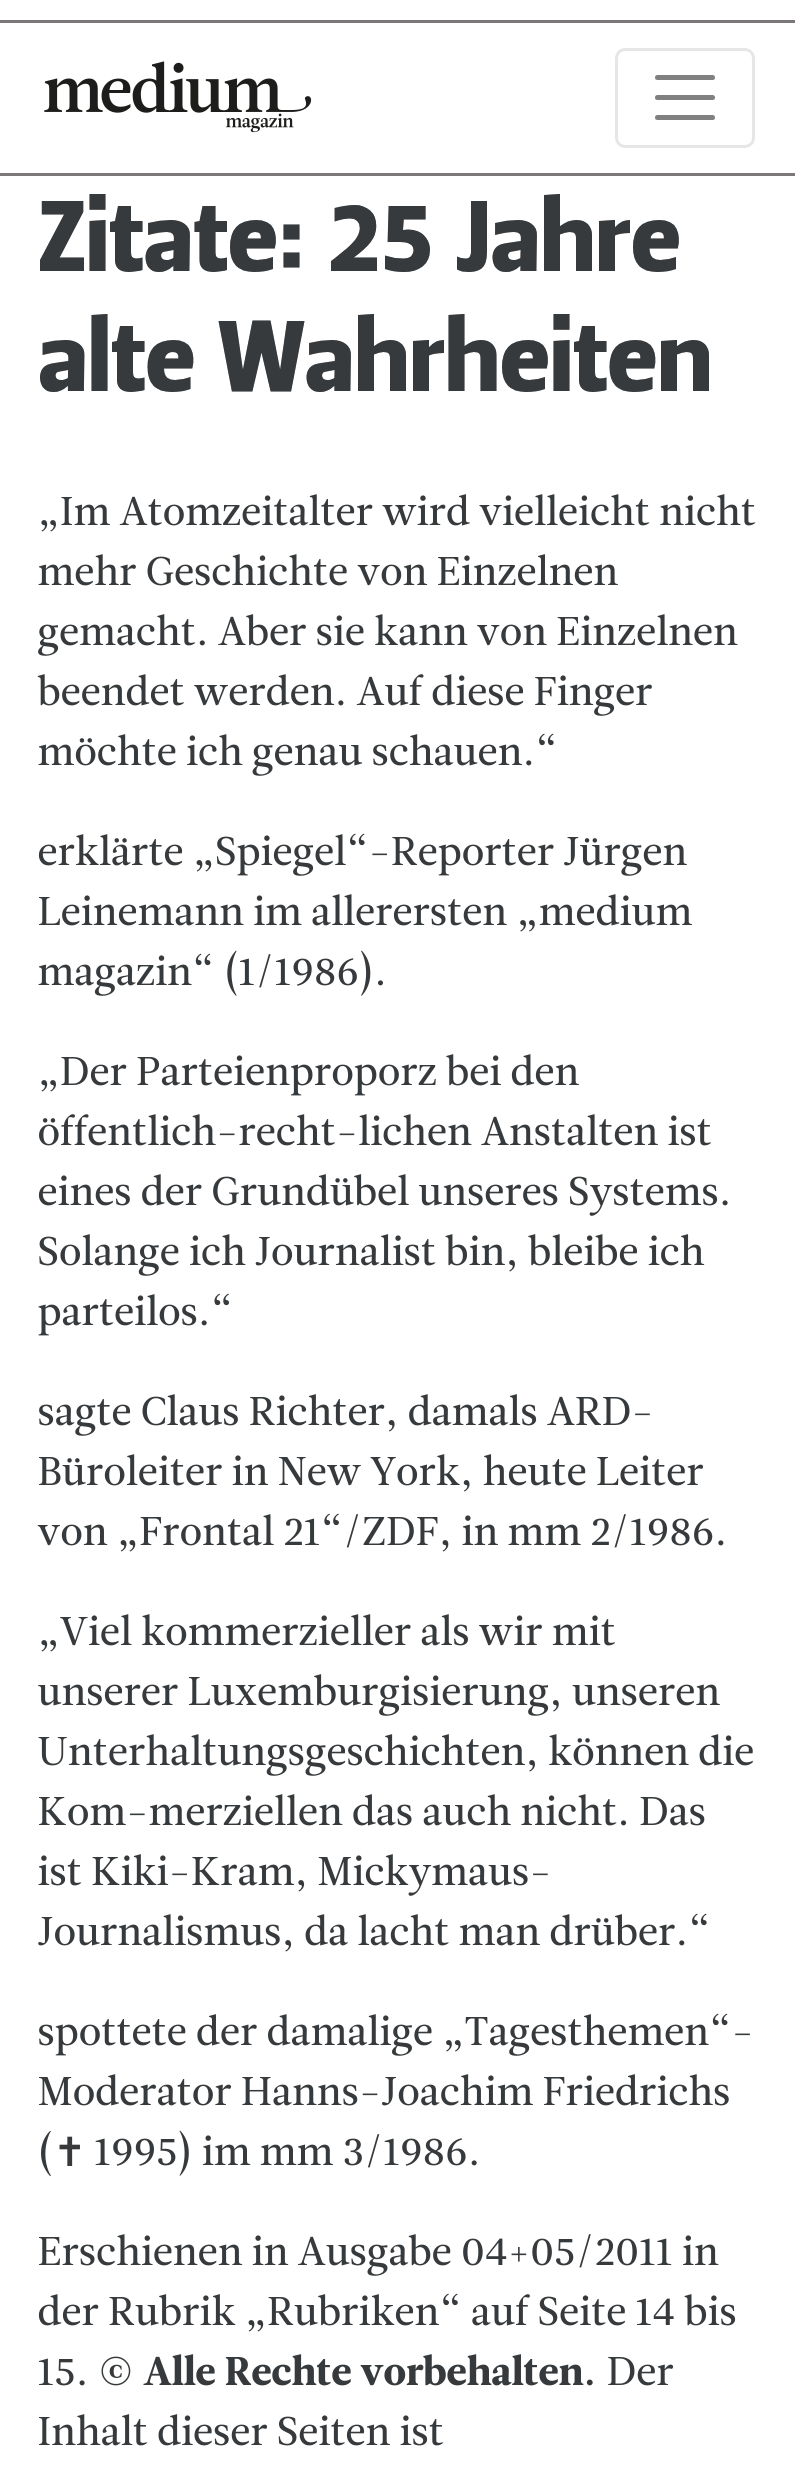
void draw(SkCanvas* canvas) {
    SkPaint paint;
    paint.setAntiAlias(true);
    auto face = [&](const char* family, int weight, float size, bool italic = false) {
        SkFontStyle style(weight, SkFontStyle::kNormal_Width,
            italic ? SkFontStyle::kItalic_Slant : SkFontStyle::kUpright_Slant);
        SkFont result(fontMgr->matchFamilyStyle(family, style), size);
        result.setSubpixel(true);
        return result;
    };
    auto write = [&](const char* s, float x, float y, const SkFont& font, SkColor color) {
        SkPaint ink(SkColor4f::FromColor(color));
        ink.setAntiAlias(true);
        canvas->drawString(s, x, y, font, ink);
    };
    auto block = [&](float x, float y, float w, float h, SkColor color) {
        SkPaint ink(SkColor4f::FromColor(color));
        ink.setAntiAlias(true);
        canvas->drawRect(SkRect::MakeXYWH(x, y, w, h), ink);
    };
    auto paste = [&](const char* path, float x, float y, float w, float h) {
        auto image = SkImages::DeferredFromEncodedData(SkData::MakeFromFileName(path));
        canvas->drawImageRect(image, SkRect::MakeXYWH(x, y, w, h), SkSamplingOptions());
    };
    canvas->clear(SK_ColorWHITE);
    block(0, 20, 795, 3, SkColorSetRGB(125, 120, 120));
    block(0, 173, 795, 3, SkColorSetRGB(125, 120, 120));
    paste("pic1.png", 44, 61, 268, 72);
    paint.setStyle(SkPaint::kStroke_Style);
    paint.setStrokeWidth(3);
    paint.setColor(SkColorSetRGB(230, 230, 230));
    canvas->drawRoundRect(SkRect::MakeXYWH(616.5f, 49.5f, 137, 97), 8.5f, 8.5f, paint);
    paint.setStrokeWidth(5);
    paint.setStrokeCap(SkPaint::kRound_Cap);
    paint.setColor(SkColorSetRGB(128, 128, 128));
    canvas->drawPath(SkPathBuilder().moveTo(657.5f, 77.5f).lineTo(712.5f, 77.5f).moveTo(657.5f, 97.5f).lineTo(712.5f, 97.5f).moveTo(657.5f, 117.5f).lineTo(712.5f, 117.5f).detach(), paint);
    auto kFont1 = face("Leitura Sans", 400, 100);
    write("Zitate: 25 Jahre", 38, 271, kFont1, SkColorSetRGB(55, 58, 60));
    write("alte Wahrheiten", 38, 391, kFont1, SkColorSetRGB(55, 58, 60));
    paste("pic2.png", 41, 494, 715, 38);
    paste("pic3.png", 38, 554, 580, 32);
    paste("pic4.png", 38, 614, 700, 42);
    paste("pic5.png", 37, 674, 615, 42);
    paste("pic6.png", 38, 733, 516, 43);
    paste("pic7.png", 38, 833, 649, 43);
    paste("pic8.png", 39, 894, 653, 38);
    paste("pic9.png", 38, 950, 345, 46);
    paste("pic10.png", 41, 1054, 538, 42);
    paste("pic11.png", 39, 1114, 672, 32);
    paste("pic12.png", 38, 1174, 690, 42);
    paste("pic13.png", 39, 1234, 666, 42);
    paste("pic14.png", 38, 1293, 191, 43);
    paste("pic15.png", 39, 1394, 611, 42);
    paste("pic16.png", 39, 1454, 665, 38);
    paste("pic17.png", 37, 1513, 687, 39);
    paste("pic18.png", 41, 1614, 574, 38);
    paste("pic19.png", 38, 1674, 682, 42);
    paste("pic20.png", 38, 1734, 715, 42);
    paste("pic21.png", 39, 1794, 666, 32);
    paste("pic22.png", 38, 1854, 510, 42);
    paste("pic23.png", 38, 1913, 669, 39);
    paste("pic24.png", 39, 2013, 711, 43);
    paste("pic25.png", 39, 2074, 690, 32);
    auto kFont2 = face("DejaVu Sans", 400, 40);
    write("✝", 53, 2166, kFont2, SkColorSetRGB(55, 58, 60));
    paint.setStyle(SkPaint::kFill_Style);
    paint.setColor(SkColorSetRGB(55, 58, 60));
    canvas->drawPath(SkPathBuilder().moveTo(47, 2141).cubicTo(44, 2152, 45, 2166, 51, 2176).lineTo(50, 2176).cubicTo(38, 2163, 38, 2143, 50, 2131).lineTo(51, 2131).cubicTo(49, 2134, 48, 2137, 47, 2141).close().detach(), paint);
    paste("pic26.png", 95, 2130, 382, 46);
    paste("pic27.png", 39, 2234, 680, 42);
    paste("pic28.png", 38, 2293, 698, 39);
    paste("pic29.png", 39, 2358, 46, 28);
    paste("pic30.png", 101, 2354, 492, 32);
    paste("pic31.png", 608, 2357, 66, 29);
    paste("pic32.png", 39, 2414, 405, 32);
}
